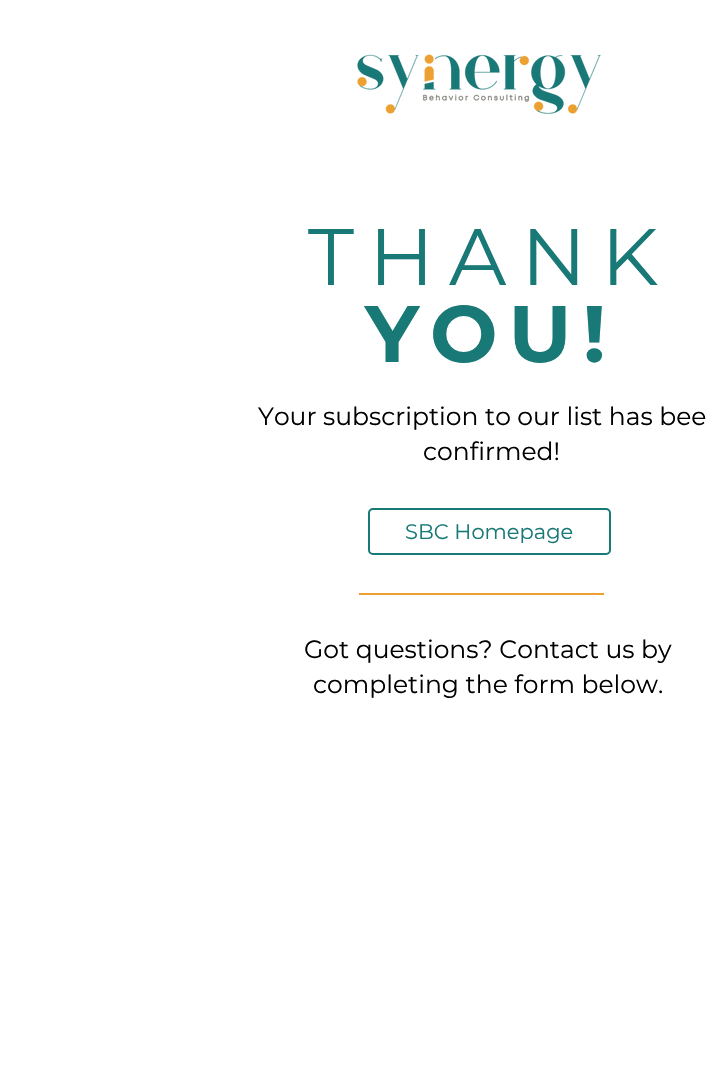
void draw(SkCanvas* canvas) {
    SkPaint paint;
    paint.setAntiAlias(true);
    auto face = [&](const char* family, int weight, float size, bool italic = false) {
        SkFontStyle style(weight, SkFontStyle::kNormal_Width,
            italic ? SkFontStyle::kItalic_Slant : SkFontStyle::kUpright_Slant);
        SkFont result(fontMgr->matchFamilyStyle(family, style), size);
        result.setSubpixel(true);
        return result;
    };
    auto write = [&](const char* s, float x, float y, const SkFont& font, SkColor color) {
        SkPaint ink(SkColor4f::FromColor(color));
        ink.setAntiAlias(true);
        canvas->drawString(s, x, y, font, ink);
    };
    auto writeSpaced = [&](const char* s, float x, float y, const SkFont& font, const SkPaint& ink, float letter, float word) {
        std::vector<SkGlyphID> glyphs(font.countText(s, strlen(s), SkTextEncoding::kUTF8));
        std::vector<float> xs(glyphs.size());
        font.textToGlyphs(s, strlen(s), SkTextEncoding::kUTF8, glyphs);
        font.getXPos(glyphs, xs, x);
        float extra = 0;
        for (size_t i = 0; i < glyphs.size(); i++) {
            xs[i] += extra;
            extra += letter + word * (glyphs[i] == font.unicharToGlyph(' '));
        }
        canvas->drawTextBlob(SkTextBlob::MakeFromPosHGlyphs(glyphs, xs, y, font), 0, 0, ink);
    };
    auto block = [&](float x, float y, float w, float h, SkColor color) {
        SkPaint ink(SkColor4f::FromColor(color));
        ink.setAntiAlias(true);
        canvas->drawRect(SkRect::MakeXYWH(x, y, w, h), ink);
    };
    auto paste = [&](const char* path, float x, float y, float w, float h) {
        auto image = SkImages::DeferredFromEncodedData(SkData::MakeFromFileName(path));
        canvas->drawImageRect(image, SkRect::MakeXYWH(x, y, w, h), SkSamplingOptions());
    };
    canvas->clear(SK_ColorWHITE);
    paste("pic1.png", 357, 54, 244, 60);
    auto kFont1 = face("Montserrat", 400, 80);
    paint.setColor(SkColorSetRGB(24, 121, 119));
    writeSpaced("THANK", 308, 285, kFont1, paint, 15, 0);
    auto kFont2 = face("Montserrat", 700, 80);
    writeSpaced("YOU!", 365, 362, kFont2, paint, 11, 0);
    auto kFont3 = face("Montserrat", 400, 25);
    write("Your subscription to our list has bee", 258, 425, kFont3, SK_ColorBLACK);
    write("confirmed!", 423, 460, kFont3, SK_ColorBLACK);
    paint.setStyle(SkPaint::kStroke_Style);
    paint.setStrokeWidth(2);
    canvas->drawRoundRect(SkRect::MakeXYWH(369, 509, 241, 45), 4, 4, paint);
    auto kFont4 = face("Montserrat", 400, 21);
    write("SBC Homepage", 405, 539, kFont4, SkColorSetRGB(24, 121, 119));
    block(359, 593, 245, 2, SkColorSetRGB(236, 160, 49));
    write("Got questions? Contact us by", 304, 658, kFont3, SK_ColorBLACK);
    write("completing the form below.", 313, 693, kFont3, SK_ColorBLACK);
}
